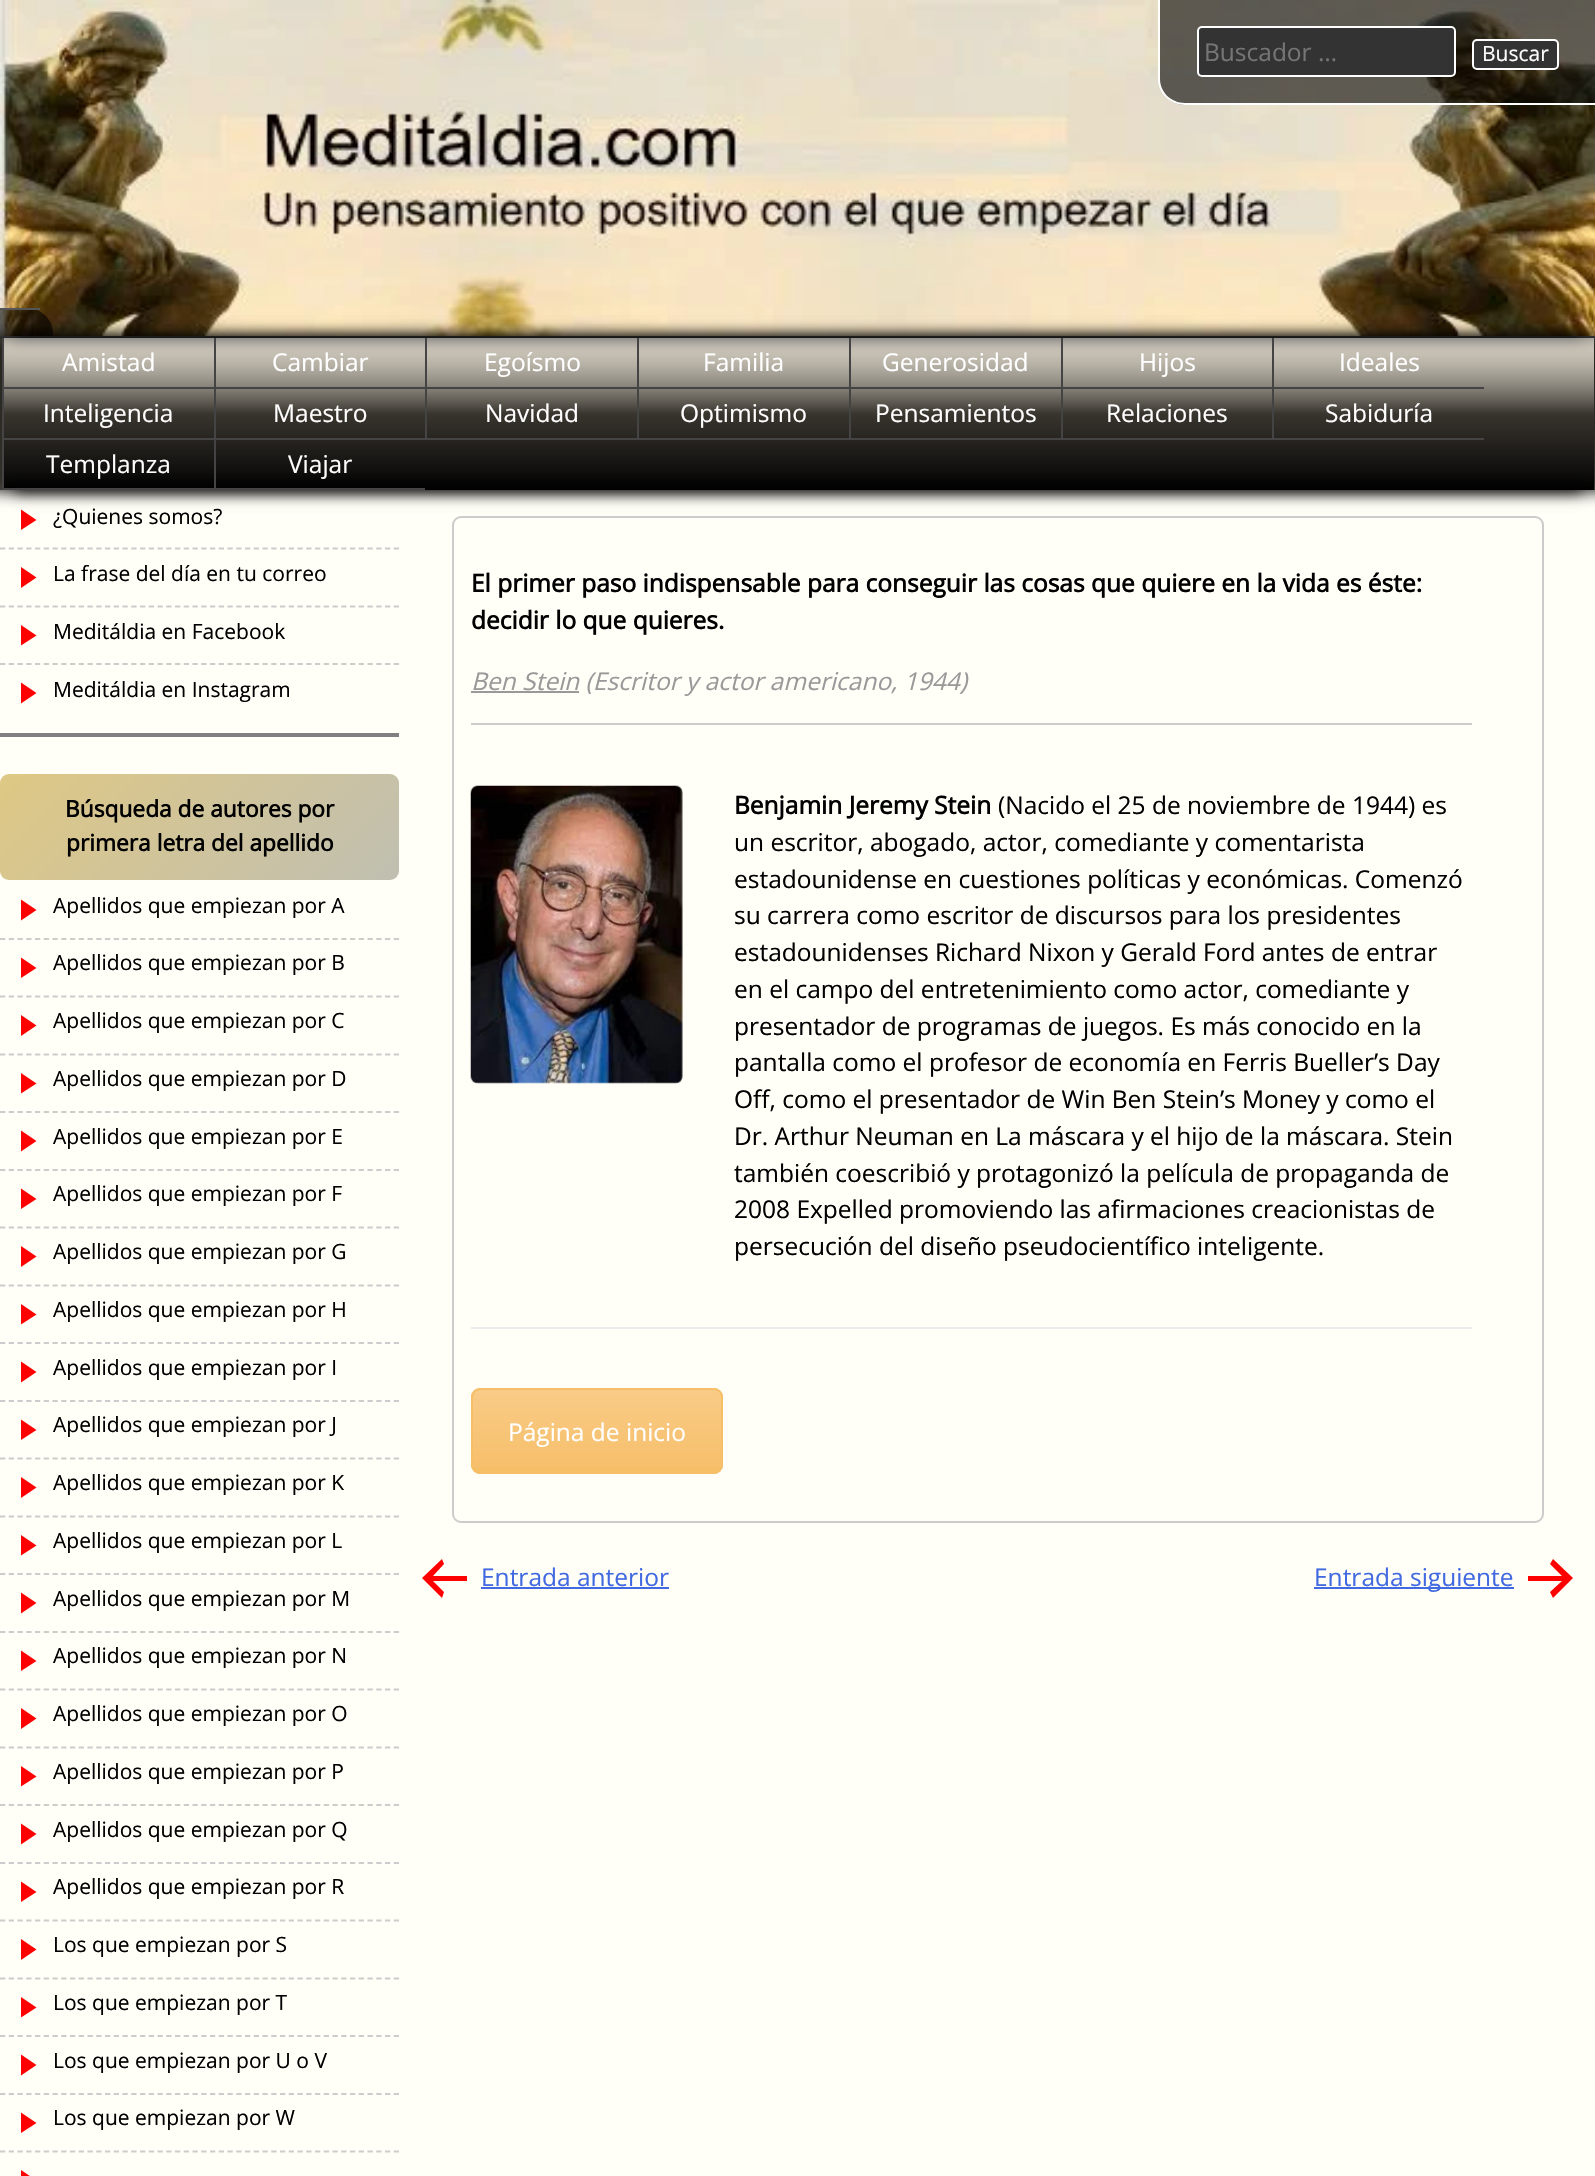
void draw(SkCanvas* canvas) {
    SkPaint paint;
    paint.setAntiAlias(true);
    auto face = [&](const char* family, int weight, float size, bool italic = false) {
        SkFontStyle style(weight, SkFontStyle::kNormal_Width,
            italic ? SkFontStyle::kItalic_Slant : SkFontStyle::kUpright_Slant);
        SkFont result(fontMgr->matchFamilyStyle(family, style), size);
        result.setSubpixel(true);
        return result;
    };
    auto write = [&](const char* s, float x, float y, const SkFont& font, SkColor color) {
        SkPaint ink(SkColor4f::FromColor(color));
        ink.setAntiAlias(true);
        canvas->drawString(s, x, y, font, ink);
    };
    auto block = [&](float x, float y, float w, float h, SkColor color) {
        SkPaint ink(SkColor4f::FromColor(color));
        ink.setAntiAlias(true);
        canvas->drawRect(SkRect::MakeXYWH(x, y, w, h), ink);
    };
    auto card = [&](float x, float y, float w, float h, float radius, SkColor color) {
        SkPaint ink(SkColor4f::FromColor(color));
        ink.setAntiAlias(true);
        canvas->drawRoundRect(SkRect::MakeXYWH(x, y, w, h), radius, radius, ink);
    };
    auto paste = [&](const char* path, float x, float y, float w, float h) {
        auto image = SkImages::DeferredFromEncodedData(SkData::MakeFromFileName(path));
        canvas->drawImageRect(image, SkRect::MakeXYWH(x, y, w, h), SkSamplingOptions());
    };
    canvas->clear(SkColorSetRGB(252, 237, 207));
    paint.setColor(SkColorSetARGB(204, 0, 0, 0));
    paint.setMaskFilter(SkMaskFilter::MakeBlur(kNormal_SkBlurStyle, 7));
    canvas->drawRect(SkRect::MakeXYWH(-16, 488, 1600, 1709), paint);
    paint.setMaskFilter(nullptr);
    paint.setMaskFilter(SkMaskFilter::MakeBlur(kNormal_SkBlurStyle, 7));
    canvas->drawRect(SkRect::MakeXYWH(12, 488, 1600, 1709), paint);
    paint.setMaskFilter(nullptr);
    {
        const SkColor colors[] = {SkColorSetARGB(204, 0, 0, 0), SkColorSetARGB(0, 0, 0, 0)};
        const float stops[] = {0, 1};
        const SkPoint ends[] = {{798, 0}, {798, 490}};
        paint.setShader(SkGradientShader::MakeLinear(ends, colors, stops, 2, SkTileMode::kClamp));
        paint.setAlpha(255);
    }
    canvas->drawRect(SkRect::MakeXYWH(0, 338, 1595, 139), paint);
    paint.setShader(nullptr);
    paint.setColor(SkColorSetARGB(204, 0, 0, 0));
    paint.setMaskFilter(SkMaskFilter::MakeBlur(kNormal_SkBlurStyle, 7));
    canvas->drawRect(SkRect::MakeXYWH(-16, -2, 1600, 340), paint);
    paint.setMaskFilter(nullptr);
    paint.setMaskFilter(SkMaskFilter::MakeBlur(kNormal_SkBlurStyle, 7));
    canvas->drawRect(SkRect::MakeXYWH(12, -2, 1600, 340), paint);
    paint.setMaskFilter(nullptr);
    paste("pic1.png", 0, 0, 1595, 336);
    paint.setColor(SkColorSetARGB(153, 0, 0, 0));
    canvas->drawPath(SkPathBuilder().moveTo(1159, 0).lineTo(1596, 0).lineTo(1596, 105).lineTo(1185, 105).cubicTo(1170.5f, 105, 1159, 93.5f, 1159, 79).close().detach(), paint);
    paint.setColor(SK_ColorWHITE);
    canvas->drawPath(SkPathBuilder(SkPathFillType::kEvenOdd).moveTo(1158, 0).lineTo(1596, 0).lineTo(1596, 105).lineTo(1185, 105).cubicTo(1170, 105, 1158, 93, 1158, 79).close().moveTo(1160, 0).lineTo(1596, 0).lineTo(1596, 103).lineTo(1185, 103).cubicTo(1171, 103, 1160, 92, 1160, 79).close().detach(), paint);
    paint.setColor(SkColorSetRGB(51, 51, 51));
    canvas->drawRoundRect(SkRect::MakeXYWH(1198, 27, 257, 49), 4, 4, paint);
    paint.setStyle(SkPaint::kStroke_Style);
    paint.setStrokeWidth(2);
    paint.setColor(SK_ColorWHITE);
    canvas->drawRoundRect(SkRect::MakeXYWH(1198, 27, 257, 49), 4, 4, paint);
    auto kFont1 = face("Open Sans", 400, 24.5f);
    write("Buscador …", 1204, 61, kFont1, SkColorSetRGB(117, 117, 117));
    paint.setStyle(SkPaint::kFill_Style);
    paint.setColor(SkColorSetRGB(51, 51, 51));
    canvas->drawRoundRect(SkRect::MakeXYWH(1473, 40, 85, 29), 4, 4, paint);
    paint.setStyle(SkPaint::kStroke_Style);
    paint.setColor(SK_ColorWHITE);
    canvas->drawRoundRect(SkRect::MakeXYWH(1473, 40, 85, 29), 4, 4, paint);
    auto kFont2 = face("Open Sans", 400, 21);
    write("Buscar", 1482, 61, kFont2, SK_ColorWHITE);
    block(0, 336, 1595, 2, SkColorSetRGB(85, 85, 85));
    block(0, 490, 1595, 1686, SkColorSetRGB(255, 254, 247));
    canvas->save();
    canvas->clipPath(SkPathBuilder(SkPathFillType::kEvenOdd).moveTo(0, 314).lineTo(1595, 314).lineTo(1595, 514).lineTo(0, 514).close().moveTo(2, 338).lineTo(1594, 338).lineTo(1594, 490).lineTo(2, 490).close().detach(), true);
    paint.setStyle(SkPaint::kFill_Style);
    paint.setColor(SkColorSetARGB(204, 0, 0, 0));
    paint.setMaskFilter(SkMaskFilter::MakeBlur(kNormal_SkBlurStyle, 7));
    canvas->drawRect(SkRect::MakeXYWH(-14, 336, 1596, 156), paint);
    paint.setMaskFilter(nullptr);
    paint.setMaskFilter(SkMaskFilter::MakeBlur(kNormal_SkBlurStyle, 7));
    canvas->drawRect(SkRect::MakeXYWH(14, 336, 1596, 156), paint);
    paint.setMaskFilter(nullptr);
    canvas->restore();
    paint.setColor(SkColorSetARGB(153, 0, 0, 0));
    canvas->drawPath(SkPathBuilder().moveTo(0, 308).lineTo(27, 308).cubicTo(41.5f, 308, 53, 319.5f, 53, 334).lineTo(53, 336).lineTo(0, 336).close().detach(), paint);
    block(0, 308, 40, 2, SkColorSetRGB(85, 85, 85));
    {
        const SkColor colors[] = {SkColorSetARGB(102, 255, 255, 255), SkColorSetARGB(191, 0, 0, 0), SK_ColorBLACK};
        const float stops[] = {0, 0.5f, 1};
        const SkPoint ends[] = {{798, 338}, {798, 490}};
        paint.setShader(SkGradientShader::MakeLinear(ends, colors, stops, 3, SkTileMode::kClamp));
        paint.setAlpha(255);
    }
    canvas->drawRect(SkRect::MakeXYWH(4, 338, 1590, 152), paint);
    block(2, 387, 1482, 2, SkColorSetRGB(68, 68, 68));
    block(2, 338, 2, 51, SkColorSetRGB(68, 68, 68));
    write("Amistad", 62, 371, kFont1, SK_ColorWHITE);
    block(214, 338, 2, 51, SkColorSetRGB(68, 68, 68));
    write("Cambiar", 272, 371, kFont1, SK_ColorWHITE);
    block(425, 338, 2, 51, SkColorSetRGB(68, 68, 68));
    write("Egoísmo", 484, 371, kFont1, SK_ColorWHITE);
    block(637, 338, 2, 51, SkColorSetRGB(68, 68, 68));
    write("Familia", 703, 371, kFont1, SK_ColorWHITE);
    block(849, 338, 2, 51, SkColorSetRGB(68, 68, 68));
    write("Generosidad", 882, 371, kFont1, SK_ColorWHITE);
    block(1061, 338, 2, 51, SkColorSetRGB(68, 68, 68));
    write("Hijos", 1139, 371, kFont1, SK_ColorWHITE);
    block(1272, 338, 2, 51, SkColorSetRGB(68, 68, 68));
    write("Ideales", 1339, 371, kFont1, SK_ColorWHITE);
    block(2, 438, 1482, 2, SkColorSetRGB(68, 68, 68));
    block(2, 389, 2, 50, SkColorSetRGB(68, 68, 68));
    write("Inteligencia", 43, 422, kFont1, SK_ColorWHITE);
    block(214, 389, 2, 50, SkColorSetRGB(68, 68, 68));
    write("Maestro", 273, 422, kFont1, SK_ColorWHITE);
    block(425, 389, 2, 50, SkColorSetRGB(68, 68, 68));
    write("Navidad", 485, 422, kFont1, SK_ColorWHITE);
    block(637, 389, 2, 50, SkColorSetRGB(68, 68, 68));
    write("Optimismo", 680, 422, kFont1, SK_ColorWHITE);
    block(849, 389, 2, 50, SkColorSetRGB(68, 68, 68));
    write("Pensamientos", 875, 422, kFont1, SK_ColorWHITE);
    block(1061, 389, 2, 50, SkColorSetRGB(68, 68, 68));
    write("Relaciones", 1106, 422, kFont1, SK_ColorWHITE);
    block(1272, 389, 2, 50, SkColorSetRGB(68, 68, 68));
    write("Sabiduría", 1325, 422, kFont1, SK_ColorWHITE);
    block(2, 488, 423, 2, SkColorSetRGB(68, 68, 68));
    block(2, 439, 2, 51, SkColorSetRGB(68, 68, 68));
    write("Templanza", 46, 473, kFont1, SK_ColorWHITE);
    block(214, 439, 2, 51, SkColorSetRGB(68, 68, 68));
    write("Viajar", 288, 473, kFont1, SK_ColorWHITE);
    paint.setShader(nullptr);
    paint.setColor(SkColorSetRGB(255, 0, 0));
    canvas->drawPath(SkPathBuilder().moveTo(21, 509.5f).lineTo(36.5f, 520).lineTo(21, 530).close().detach(), paint);
    write("¿Quienes somos?", 53, 524, kFont2, SK_ColorBLACK);
    paint.setStyle(SkPaint::kStroke_Style);
    paint.setStrokeWidth(1.8f);
    paint.setColor(SkColorSetRGB(204, 204, 204));
    paint.setPathEffect(SkDashPathEffect::Make({{5.25f, 3.5f}}, 0));
    canvas->drawPath(SkPathBuilder().moveTo(0, 548.5f).lineTo(399, 548.5f).detach(), paint);
    paint.setPathEffect(nullptr);
    paint.setStyle(SkPaint::kFill_Style);
    paint.setColor(SkColorSetRGB(255, 0, 0));
    canvas->drawPath(SkPathBuilder().moveTo(21, 567).lineTo(36.5f, 577.5f).lineTo(21, 588).close().detach(), paint);
    write("La frase del día en tu correo", 53, 581, kFont2, SK_ColorBLACK);
    paint.setStyle(SkPaint::kStroke_Style);
    paint.setColor(SkColorSetRGB(204, 204, 204));
    paint.setPathEffect(SkDashPathEffect::Make({{5.25f, 3.5f}}, 0));
    canvas->drawPath(SkPathBuilder().moveTo(0, 606.5f).lineTo(399, 606.5f).detach(), paint);
    paint.setPathEffect(nullptr);
    paint.setStyle(SkPaint::kFill_Style);
    paint.setColor(SkColorSetRGB(255, 0, 0));
    canvas->drawPath(SkPathBuilder().moveTo(21, 625).lineTo(36.5f, 635.5f).lineTo(21, 645.5f).close().detach(), paint);
    write("Meditáldia en Facebook", 53, 639, kFont2, SK_ColorBLACK);
    paint.setStyle(SkPaint::kStroke_Style);
    paint.setColor(SkColorSetRGB(204, 204, 204));
    paint.setPathEffect(SkDashPathEffect::Make({{5.25f, 3.5f}}, 0));
    canvas->drawPath(SkPathBuilder().moveTo(0, 664).lineTo(399, 664).detach(), paint);
    paint.setPathEffect(nullptr);
    paint.setStyle(SkPaint::kFill_Style);
    paint.setColor(SkColorSetRGB(255, 0, 0));
    canvas->drawPath(SkPathBuilder().moveTo(21, 682.5f).lineTo(36.5f, 693).lineTo(21, 703.5f).close().detach(), paint);
    write("Meditáldia en Instagram", 53, 697, kFont2, SK_ColorBLACK);
    block(0, 733, 399, 4, SkColorSetRGB(128, 128, 128));
    {
        const SkColor colors[] = {SkColorSetRGB(223, 200, 132), SkColorSetRGB(192, 191, 177)};
        const float stops[] = {0, 1};
        const SkPoint ends[] = {{73, 700}, {326, 953}};
        paint.setShader(SkGradientShader::MakeLinear(ends, colors, stops, 2, SkTileMode::kClamp));
        paint.setAlpha(255);
    }
    canvas->drawRoundRect(SkRect::MakeXYWH(0, 774, 399, 106), 9, 9, paint);
    auto kFont3 = face("Open Sans", 700, 22.75f);
    write("Búsqueda de autores por", 65, 817, kFont3, SK_ColorBLACK);
    write("primera letra del apellido", 66, 851, kFont3, SK_ColorBLACK);
    paint.setShader(nullptr);
    paint.setColor(SkColorSetRGB(255, 0, 0));
    canvas->drawPath(SkPathBuilder().moveTo(21, 899.5f).lineTo(36.5f, 910).lineTo(21, 920.5f).close().detach(), paint);
    write("Apellidos que empiezan por A", 53, 913, kFont2, SK_ColorBLACK);
    paint.setStyle(SkPaint::kStroke_Style);
    paint.setColor(SkColorSetRGB(204, 204, 204));
    paint.setPathEffect(SkDashPathEffect::Make({{5.25f, 3.5f}}, 0));
    canvas->drawPath(SkPathBuilder().moveTo(0, 939).lineTo(399, 939).detach(), paint);
    paint.setPathEffect(nullptr);
    paint.setStyle(SkPaint::kFill_Style);
    paint.setColor(SkColorSetRGB(255, 0, 0));
    canvas->drawPath(SkPathBuilder().moveTo(21, 957.5f).lineTo(36.5f, 968).lineTo(21, 978).close().detach(), paint);
    write("Apellidos que empiezan por B", 53, 970, kFont2, SK_ColorBLACK);
    paint.setStyle(SkPaint::kStroke_Style);
    paint.setColor(SkColorSetRGB(204, 204, 204));
    paint.setPathEffect(SkDashPathEffect::Make({{5.25f, 3.5f}}, 0));
    canvas->drawPath(SkPathBuilder().moveTo(0, 996.5f).lineTo(399, 996.5f).detach(), paint);
    paint.setPathEffect(nullptr);
    paint.setStyle(SkPaint::kFill_Style);
    paint.setColor(SkColorSetRGB(255, 0, 0));
    canvas->drawPath(SkPathBuilder().moveTo(21, 1015).lineTo(36.5f, 1025.5f).lineTo(21, 1036).close().detach(), paint);
    write("Apellidos que empiezan por C", 53, 1028, kFont2, SK_ColorBLACK);
    paint.setStyle(SkPaint::kStroke_Style);
    paint.setColor(SkColorSetRGB(204, 204, 204));
    paint.setPathEffect(SkDashPathEffect::Make({{5.25f, 3.5f}}, 0));
    canvas->drawPath(SkPathBuilder().moveTo(0, 1054.5f).lineTo(399, 1054.5f).detach(), paint);
    paint.setPathEffect(nullptr);
    paint.setStyle(SkPaint::kFill_Style);
    paint.setColor(SkColorSetRGB(255, 0, 0));
    canvas->drawPath(SkPathBuilder().moveTo(21, 1073).lineTo(36.5f, 1083.5f).lineTo(21, 1093.5f).close().detach(), paint);
    write("Apellidos que empiezan por D", 53, 1086, kFont2, SK_ColorBLACK);
    paint.setStyle(SkPaint::kStroke_Style);
    paint.setColor(SkColorSetRGB(204, 204, 204));
    paint.setPathEffect(SkDashPathEffect::Make({{5.25f, 3.5f}}, 0));
    canvas->drawPath(SkPathBuilder().moveTo(0, 1112).lineTo(399, 1112).detach(), paint);
    paint.setPathEffect(nullptr);
    paint.setStyle(SkPaint::kFill_Style);
    paint.setColor(SkColorSetRGB(255, 0, 0));
    canvas->drawPath(SkPathBuilder().moveTo(21, 1130.5f).lineTo(36.5f, 1141).lineTo(21, 1151.5f).close().detach(), paint);
    write("Apellidos que empiezan por E", 53, 1144, kFont2, SK_ColorBLACK);
    paint.setStyle(SkPaint::kStroke_Style);
    paint.setColor(SkColorSetRGB(204, 204, 204));
    paint.setPathEffect(SkDashPathEffect::Make({{5.25f, 3.5f}}, 0));
    canvas->drawPath(SkPathBuilder().moveTo(0, 1170).lineTo(399, 1170).detach(), paint);
    paint.setPathEffect(nullptr);
    paint.setStyle(SkPaint::kFill_Style);
    paint.setColor(SkColorSetRGB(255, 0, 0));
    canvas->drawPath(SkPathBuilder().moveTo(21, 1188.5f).lineTo(36.5f, 1199).lineTo(21, 1209).close().detach(), paint);
    write("Apellidos que empiezan por F", 53, 1201, kFont2, SK_ColorBLACK);
    paint.setStyle(SkPaint::kStroke_Style);
    paint.setColor(SkColorSetRGB(204, 204, 204));
    paint.setPathEffect(SkDashPathEffect::Make({{5.25f, 3.5f}}, 0));
    canvas->drawPath(SkPathBuilder().moveTo(0, 1227.5f).lineTo(399, 1227.5f).detach(), paint);
    paint.setPathEffect(nullptr);
    paint.setStyle(SkPaint::kFill_Style);
    paint.setColor(SkColorSetRGB(255, 0, 0));
    canvas->drawPath(SkPathBuilder().moveTo(21, 1246).lineTo(36.5f, 1256.5f).lineTo(21, 1267).close().detach(), paint);
    write("Apellidos que empiezan por G", 53, 1259, kFont2, SK_ColorBLACK);
    paint.setStyle(SkPaint::kStroke_Style);
    paint.setColor(SkColorSetRGB(204, 204, 204));
    paint.setPathEffect(SkDashPathEffect::Make({{5.25f, 3.5f}}, 0));
    canvas->drawPath(SkPathBuilder().moveTo(0, 1285.5f).lineTo(399, 1285.5f).detach(), paint);
    paint.setPathEffect(nullptr);
    paint.setStyle(SkPaint::kFill_Style);
    paint.setColor(SkColorSetRGB(255, 0, 0));
    canvas->drawPath(SkPathBuilder().moveTo(21, 1304).lineTo(36.5f, 1314.5f).lineTo(21, 1324.5f).close().detach(), paint);
    write("Apellidos que empiezan por H", 53, 1317, kFont2, SK_ColorBLACK);
    paint.setStyle(SkPaint::kStroke_Style);
    paint.setColor(SkColorSetRGB(204, 204, 204));
    paint.setPathEffect(SkDashPathEffect::Make({{5.25f, 3.5f}}, 0));
    canvas->drawPath(SkPathBuilder().moveTo(0, 1343).lineTo(399, 1343).detach(), paint);
    paint.setPathEffect(nullptr);
    paint.setStyle(SkPaint::kFill_Style);
    paint.setColor(SkColorSetRGB(255, 0, 0));
    canvas->drawPath(SkPathBuilder().moveTo(21, 1361.5f).lineTo(36.5f, 1372).lineTo(21, 1382.5f).close().detach(), paint);
    write("Apellidos que empiezan por I", 53, 1375, kFont2, SK_ColorBLACK);
    paint.setStyle(SkPaint::kStroke_Style);
    paint.setColor(SkColorSetRGB(204, 204, 204));
    paint.setPathEffect(SkDashPathEffect::Make({{5.25f, 3.5f}}, 0));
    canvas->drawPath(SkPathBuilder().moveTo(0, 1401).lineTo(399, 1401).detach(), paint);
    paint.setPathEffect(nullptr);
    paint.setStyle(SkPaint::kFill_Style);
    paint.setColor(SkColorSetRGB(255, 0, 0));
    canvas->drawPath(SkPathBuilder().moveTo(21, 1419.5f).lineTo(36.5f, 1430).lineTo(21, 1440).close().detach(), paint);
    write("Apellidos que empiezan por J", 53, 1432, kFont2, SK_ColorBLACK);
    paint.setStyle(SkPaint::kStroke_Style);
    paint.setColor(SkColorSetRGB(204, 204, 204));
    paint.setPathEffect(SkDashPathEffect::Make({{5.25f, 3.5f}}, 0));
    canvas->drawPath(SkPathBuilder().moveTo(0, 1458.5f).lineTo(399, 1458.5f).detach(), paint);
    paint.setPathEffect(nullptr);
    paint.setStyle(SkPaint::kFill_Style);
    paint.setColor(SkColorSetRGB(255, 0, 0));
    canvas->drawPath(SkPathBuilder().moveTo(21, 1477).lineTo(36.5f, 1487.5f).lineTo(21, 1498).close().detach(), paint);
    write("Apellidos que empiezan por K", 53, 1490, kFont2, SK_ColorBLACK);
    paint.setStyle(SkPaint::kStroke_Style);
    paint.setColor(SkColorSetRGB(204, 204, 204));
    paint.setPathEffect(SkDashPathEffect::Make({{5.25f, 3.5f}}, 0));
    canvas->drawPath(SkPathBuilder().moveTo(0, 1516.5f).lineTo(399, 1516.5f).detach(), paint);
    paint.setPathEffect(nullptr);
    paint.setStyle(SkPaint::kFill_Style);
    paint.setColor(SkColorSetRGB(255, 0, 0));
    canvas->drawPath(SkPathBuilder().moveTo(21, 1535).lineTo(36.5f, 1545.5f).lineTo(21, 1555.5f).close().detach(), paint);
    write("Apellidos que empiezan por L", 53, 1548, kFont2, SK_ColorBLACK);
    paint.setStyle(SkPaint::kStroke_Style);
    paint.setColor(SkColorSetRGB(204, 204, 204));
    paint.setPathEffect(SkDashPathEffect::Make({{5.25f, 3.5f}}, 0));
    canvas->drawPath(SkPathBuilder().moveTo(0, 1574).lineTo(399, 1574).detach(), paint);
    paint.setPathEffect(nullptr);
    paint.setStyle(SkPaint::kFill_Style);
    paint.setColor(SkColorSetRGB(255, 0, 0));
    canvas->drawPath(SkPathBuilder().moveTo(21, 1592.5f).lineTo(36.5f, 1603).lineTo(21, 1613.5f).close().detach(), paint);
    write("Apellidos que empiezan por M", 53, 1606, kFont2, SK_ColorBLACK);
    paint.setStyle(SkPaint::kStroke_Style);
    paint.setColor(SkColorSetRGB(204, 204, 204));
    paint.setPathEffect(SkDashPathEffect::Make({{5.25f, 3.5f}}, 0));
    canvas->drawPath(SkPathBuilder().moveTo(0, 1632).lineTo(399, 1632).detach(), paint);
    paint.setPathEffect(nullptr);
    paint.setStyle(SkPaint::kFill_Style);
    paint.setColor(SkColorSetRGB(255, 0, 0));
    canvas->drawPath(SkPathBuilder().moveTo(21, 1650.5f).lineTo(36.5f, 1661).lineTo(21, 1671).close().detach(), paint);
    write("Apellidos que empiezan por N", 53, 1663, kFont2, SK_ColorBLACK);
    paint.setStyle(SkPaint::kStroke_Style);
    paint.setColor(SkColorSetRGB(204, 204, 204));
    paint.setPathEffect(SkDashPathEffect::Make({{5.25f, 3.5f}}, 0));
    canvas->drawPath(SkPathBuilder().moveTo(0, 1689.5f).lineTo(399, 1689.5f).detach(), paint);
    paint.setPathEffect(nullptr);
    paint.setStyle(SkPaint::kFill_Style);
    paint.setColor(SkColorSetRGB(255, 0, 0));
    canvas->drawPath(SkPathBuilder().moveTo(21, 1708).lineTo(36.5f, 1718.5f).lineTo(21, 1729).close().detach(), paint);
    write("Apellidos que empiezan por O", 53, 1721, kFont2, SK_ColorBLACK);
    paint.setStyle(SkPaint::kStroke_Style);
    paint.setColor(SkColorSetRGB(204, 204, 204));
    paint.setPathEffect(SkDashPathEffect::Make({{5.25f, 3.5f}}, 0));
    canvas->drawPath(SkPathBuilder().moveTo(0, 1747.5f).lineTo(399, 1747.5f).detach(), paint);
    paint.setPathEffect(nullptr);
    paint.setStyle(SkPaint::kFill_Style);
    paint.setColor(SkColorSetRGB(255, 0, 0));
    canvas->drawPath(SkPathBuilder().moveTo(21, 1766).lineTo(36.5f, 1776.5f).lineTo(21, 1786.5f).close().detach(), paint);
    write("Apellidos que empiezan por P", 53, 1779, kFont2, SK_ColorBLACK);
    paint.setStyle(SkPaint::kStroke_Style);
    paint.setColor(SkColorSetRGB(204, 204, 204));
    paint.setPathEffect(SkDashPathEffect::Make({{5.25f, 3.5f}}, 0));
    canvas->drawPath(SkPathBuilder().moveTo(0, 1805).lineTo(399, 1805).detach(), paint);
    paint.setPathEffect(nullptr);
    paint.setStyle(SkPaint::kFill_Style);
    paint.setColor(SkColorSetRGB(255, 0, 0));
    canvas->drawPath(SkPathBuilder().moveTo(21, 1823.5f).lineTo(36.5f, 1834).lineTo(21, 1844.5f).close().detach(), paint);
    write("Apellidos que empiezan por Q", 53, 1837, kFont2, SK_ColorBLACK);
    paint.setStyle(SkPaint::kStroke_Style);
    paint.setColor(SkColorSetRGB(204, 204, 204));
    paint.setPathEffect(SkDashPathEffect::Make({{5.25f, 3.5f}}, 0));
    canvas->drawPath(SkPathBuilder().moveTo(0, 1863).lineTo(399, 1863).detach(), paint);
    paint.setPathEffect(nullptr);
    paint.setStyle(SkPaint::kFill_Style);
    paint.setColor(SkColorSetRGB(255, 0, 0));
    canvas->drawPath(SkPathBuilder().moveTo(21, 1881.5f).lineTo(36.5f, 1892).lineTo(21, 1902).close().detach(), paint);
    write("Apellidos que empiezan por R", 53, 1894, kFont2, SK_ColorBLACK);
    paint.setStyle(SkPaint::kStroke_Style);
    paint.setColor(SkColorSetRGB(204, 204, 204));
    paint.setPathEffect(SkDashPathEffect::Make({{5.25f, 3.5f}}, 0));
    canvas->drawPath(SkPathBuilder().moveTo(0, 1920.5f).lineTo(399, 1920.5f).detach(), paint);
    paint.setPathEffect(nullptr);
    paint.setStyle(SkPaint::kFill_Style);
    paint.setColor(SkColorSetRGB(255, 0, 0));
    canvas->drawPath(SkPathBuilder().moveTo(21, 1939).lineTo(36.5f, 1949.5f).lineTo(21, 1960).close().detach(), paint);
    write("Los que empiezan por S", 53, 1952, kFont2, SK_ColorBLACK);
    paint.setStyle(SkPaint::kStroke_Style);
    paint.setColor(SkColorSetRGB(204, 204, 204));
    paint.setPathEffect(SkDashPathEffect::Make({{5.25f, 3.5f}}, 0));
    canvas->drawPath(SkPathBuilder().moveTo(0, 1978.5f).lineTo(399, 1978.5f).detach(), paint);
    paint.setPathEffect(nullptr);
    paint.setStyle(SkPaint::kFill_Style);
    paint.setColor(SkColorSetRGB(255, 0, 0));
    canvas->drawPath(SkPathBuilder().moveTo(21, 1997).lineTo(36.5f, 2007.5f).lineTo(21, 2017.5f).close().detach(), paint);
    write("Los que empiezan por T", 53, 2010, kFont2, SK_ColorBLACK);
    paint.setStyle(SkPaint::kStroke_Style);
    paint.setColor(SkColorSetRGB(204, 204, 204));
    paint.setPathEffect(SkDashPathEffect::Make({{5.25f, 3.5f}}, 0));
    canvas->drawPath(SkPathBuilder().moveTo(0, 2036).lineTo(399, 2036).detach(), paint);
    paint.setPathEffect(nullptr);
    paint.setStyle(SkPaint::kFill_Style);
    paint.setColor(SkColorSetRGB(255, 0, 0));
    canvas->drawPath(SkPathBuilder().moveTo(21, 2054.5f).lineTo(36.5f, 2065).lineTo(21, 2075.5f).close().detach(), paint);
    write("Los que empiezan por U o V", 53, 2068, kFont2, SK_ColorBLACK);
    paint.setStyle(SkPaint::kStroke_Style);
    paint.setColor(SkColorSetRGB(204, 204, 204));
    paint.setPathEffect(SkDashPathEffect::Make({{5.25f, 3.5f}}, 0));
    canvas->drawPath(SkPathBuilder().moveTo(0, 2094).lineTo(399, 2094).detach(), paint);
    paint.setPathEffect(nullptr);
    paint.setStyle(SkPaint::kFill_Style);
    paint.setColor(SkColorSetRGB(255, 0, 0));
    canvas->drawPath(SkPathBuilder().moveTo(21, 2112.5f).lineTo(36.5f, 2123).lineTo(21, 2133).close().detach(), paint);
    write("Los que empiezan por W", 53, 2125, kFont2, SK_ColorBLACK);
    paint.setStyle(SkPaint::kStroke_Style);
    paint.setColor(SkColorSetRGB(204, 204, 204));
    paint.setPathEffect(SkDashPathEffect::Make({{5.25f, 3.5f}}, 0));
    canvas->drawPath(SkPathBuilder().moveTo(0, 2151.5f).lineTo(399, 2151.5f).detach(), paint);
    paint.setPathEffect(nullptr);
    paint.setStyle(SkPaint::kFill_Style);
    paint.setColor(SkColorSetRGB(255, 0, 0));
    canvas->drawPath(SkPathBuilder().moveTo(21, 2170).lineTo(36.5f, 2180.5f).lineTo(21, 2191).close().detach(), paint);
    paint.setStyle(SkPaint::kStroke_Style);
    paint.setStrokeWidth(2);
    paint.setColor(SkColorSetRGB(204, 204, 204));
    canvas->drawRoundRect(SkRect::MakeXYWH(453, 517, 1090, 1005), 8, 8, paint);
    auto kFont4 = face("Open Sans", 700, 24.5f);
    write("El primer paso indispensable para conseguir las cosas que quiere en la vida es éste:", 471, 592, kFont4, SK_ColorBLACK);
    write("decidir lo que quieres.", 471, 629, kFont4, SK_ColorBLACK);
    block(471, 691, 108, 2, SkColorSetRGB(153, 153, 153));
    auto kFont5 = face("Open Sans", 400, 24.5f, true);
    write("Ben Stein (Escritor y actor americano, 1944)", 471, 690, kFont5, SkColorSetRGB(153, 153, 153));
    block(471, 723, 1001, 2, SkColorSetRGB(204, 204, 204));
    paste("pic2.png", 470, 785, 213, 299);
    write("Benjamin Jeremy Stein", 734, 814, kFont4, SK_ColorBLACK);
    write("(Nacido el 25 de noviembre de 1944) es", 998, 814, kFont1, SK_ColorBLACK);
    write("un escritor, abogado, actor, comediante y comentarista", 734, 851, kFont1, SK_ColorBLACK);
    write("estadounidense en cuestiones políticas y económicas. Comenzó", 734, 888, kFont1, SK_ColorBLACK);
    write("su carrera como escritor de discursos para los presidentes", 734, 924, kFont1, SK_ColorBLACK);
    write("estadounidenses Richard Nixon y Gerald Ford antes de entrar", 734, 961, kFont1, SK_ColorBLACK);
    write("en el campo del entretenimiento como actor, comediante y", 734, 998, kFont1, SK_ColorBLACK);
    write("presentador de programas de juegos. Es más conocido en la", 734, 1035, kFont1, SK_ColorBLACK);
    write("pantalla como el profesor de economía en Ferris Bueller’s Day", 734, 1071, kFont1, SK_ColorBLACK);
    write("Off, como el presentador de Win Ben Stein’s Money y como el", 734, 1108, kFont1, SK_ColorBLACK);
    write("Dr. Arthur Neuman en La máscara y el hijo de la máscara. Stein", 734, 1145, kFont1, SK_ColorBLACK);
    write("también coescribió y protagonizó la película de propaganda de", 734, 1182, kFont1, SK_ColorBLACK);
    write("2008 Expelled promoviendo las afirmaciones creacionistas de", 734, 1218, kFont1, SK_ColorBLACK);
    write("persecución del diseño pseudocientífico inteligente.", 734, 1255, kFont1, SK_ColorBLACK);
    block(471, 1327, 1001, 2, SkColorSetRGB(235, 235, 235));
    card(471, 1388, 252, 86, 9, SkColorSetRGB(247, 190, 104));
    canvas->save();
    canvas->clipPath(SkPathBuilder().moveTo(480, 1388).lineTo(714, 1388).cubicTo(719, 1388, 723, 1392, 723, 1397).lineTo(723, 1465).cubicTo(723, 1470, 719, 1474, 714, 1474).lineTo(480, 1474).cubicTo(475, 1474, 471, 1470, 471, 1465).lineTo(471, 1397).cubicTo(471, 1392, 475, 1388, 480, 1388).close().detach(), true);
    paint.setStyle(SkPaint::kFill_Style);
    {
        const SkColor colors[] = {SkColorSetARGB(51, 255, 255, 255), SkColorSetARGB(3, 255, 255, 255)};
        const float stops[] = {0, 1};
        const SkPoint ends[] = {{597, 1390}, {597, 1472}};
        paint.setShader(SkGradientShader::MakeLinear(ends, colors, stops, 2, SkTileMode::kClamp));
        paint.setAlpha(255);
    }
    canvas->drawRect(SkRect::MakeXYWH(471, 1390, 252, 77), paint);
    canvas->restore();
    paint.setStyle(SkPaint::kStroke_Style);
    paint.setShader(nullptr);
    paint.setColor(SkColorSetRGB(247, 190, 104));
    canvas->drawRoundRect(SkRect::MakeXYWH(472, 1389, 250, 84), 8, 8, paint);
    write("Página de inicio", 508, 1441, kFont1, SK_ColorWHITE);
    paint.setStyle(SkPaint::kFill_Style);
    paint.setColor(SkColorSetRGB(255, 0, 0));
    canvas->drawPath(SkPathBuilder().moveTo(467, 1576).lineTo(467, 1581).lineTo(433, 1581).lineTo(444, 1592).lineTo(442, 1598).lineTo(422, 1578).lineTo(442, 1559).lineTo(444, 1564).lineTo(433, 1576).close().detach(), paint);
    write("Entrada anterior", 481, 1586, kFont1, SkColorSetRGB(65, 105, 225));
    block(481, 1587, 188, 2, SkColorSetRGB(65, 105, 225));
    block(1314, 1587, 200, 2, SkColorSetRGB(65, 105, 225));
    write("Entrada siguiente", 1314, 1586, kFont1, SkColorSetRGB(65, 105, 225));
    canvas->drawPath(SkPathBuilder().moveTo(1528, 1581).lineTo(1528, 1576).lineTo(1562, 1576).lineTo(1550, 1564).lineTo(1553, 1559).lineTo(1573, 1578).lineTo(1553, 1598).lineTo(1550, 1592).lineTo(1562, 1581).close().detach(), paint);
}
